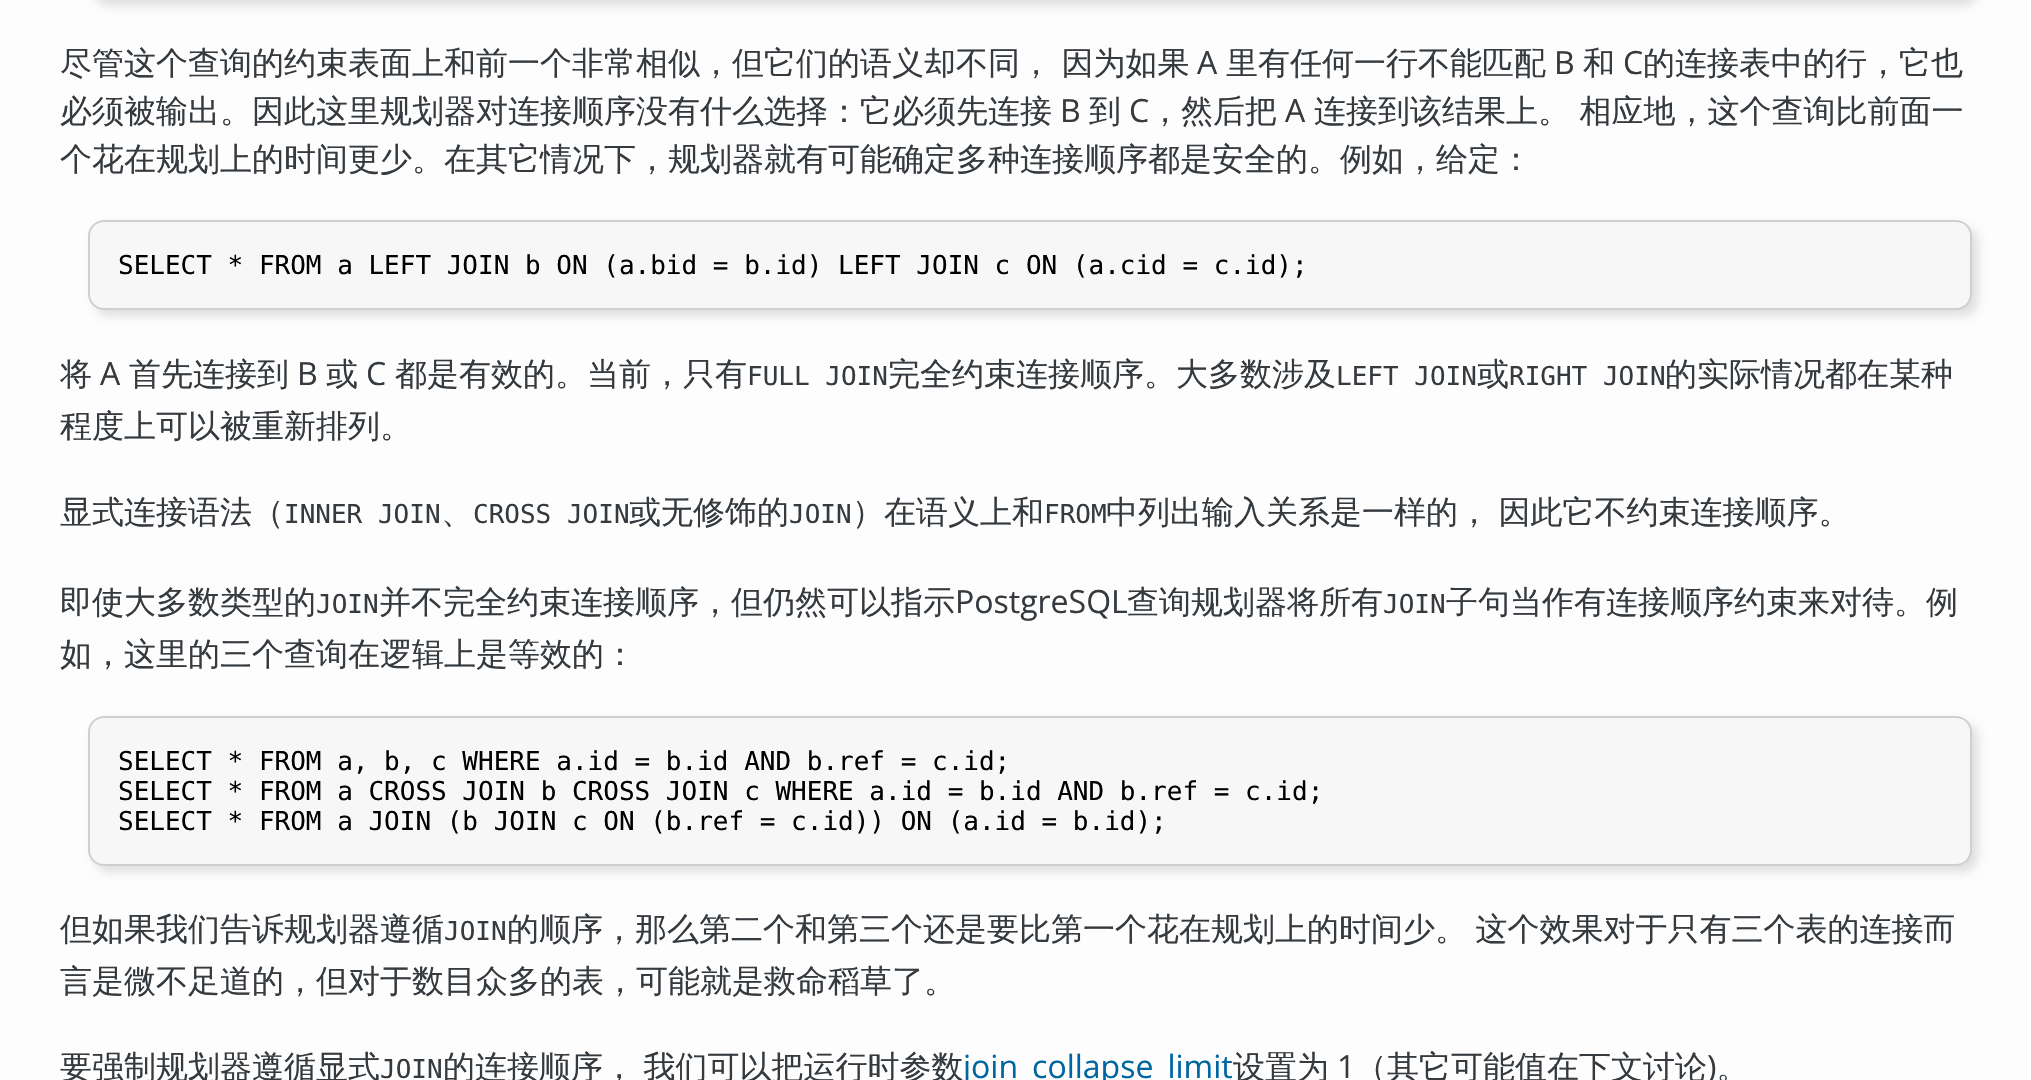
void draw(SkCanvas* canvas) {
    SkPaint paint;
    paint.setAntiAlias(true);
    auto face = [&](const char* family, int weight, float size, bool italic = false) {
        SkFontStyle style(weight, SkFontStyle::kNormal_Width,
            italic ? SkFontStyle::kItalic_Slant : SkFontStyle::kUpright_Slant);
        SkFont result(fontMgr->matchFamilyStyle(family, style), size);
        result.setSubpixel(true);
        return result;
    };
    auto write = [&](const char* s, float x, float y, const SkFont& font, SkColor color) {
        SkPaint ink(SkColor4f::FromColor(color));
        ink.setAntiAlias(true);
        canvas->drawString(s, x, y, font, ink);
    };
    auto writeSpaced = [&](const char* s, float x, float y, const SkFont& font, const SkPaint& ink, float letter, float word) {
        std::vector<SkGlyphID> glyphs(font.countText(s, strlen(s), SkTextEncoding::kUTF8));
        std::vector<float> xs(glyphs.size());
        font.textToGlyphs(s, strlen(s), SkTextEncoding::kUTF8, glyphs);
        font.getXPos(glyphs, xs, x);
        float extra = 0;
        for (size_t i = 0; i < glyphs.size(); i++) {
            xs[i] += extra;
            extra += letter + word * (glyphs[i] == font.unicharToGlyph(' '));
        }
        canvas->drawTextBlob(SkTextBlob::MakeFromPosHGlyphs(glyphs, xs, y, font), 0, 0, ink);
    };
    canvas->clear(SkColorSetRGB(253, 253, 253));
    paint.setColor(SkColorSetRGB(223, 223, 223));
    paint.setMaskFilter(SkMaskFilter::MakeBlur(kNormal_SkBlurStyle, 5));
    canvas->drawRoundRect(SkRect::MakeXYWH(94, -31, 1884, 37), 16, 16, paint);
    paint.setMaskFilter(nullptr);
    auto kFont1 = face("WenQuanYi Zen Hei", 500, 32);
    write("尽管这个查询的约束表面上和前一个非常相似，但它们的语义却不同， 因为如果", 60, 74, kFont1, SkColorSetRGB(53, 58, 63));
    auto kFont2 = face("Open Sans", 400, 32);
    write("A", 1197, 74, kFont2, SkColorSetRGB(53, 58, 63));
    write("里有任何一行不能匹配", 1226, 74, kFont1, SkColorSetRGB(53, 58, 63));
    write("B", 1554, 74, kFont2, SkColorSetRGB(53, 58, 63));
    write("和", 1583, 74, kFont1, SkColorSetRGB(53, 58, 63));
    write("C", 1623, 74, kFont2, SkColorSetRGB(53, 58, 63));
    write("的连接表中的行，它也", 1643, 74, kFont1, SkColorSetRGB(53, 58, 63));
    write("必须被输出。因此这里规划器对连接顺序没有什么选择：它必须先连接", 60, 122, kFont1, SkColorSetRGB(53, 58, 63));
    write("B", 1060, 122, kFont2, SkColorSetRGB(53, 58, 63));
    write("到", 1089, 122, kFont1, SkColorSetRGB(53, 58, 63));
    write("C", 1129, 122, kFont2, SkColorSetRGB(53, 58, 63));
    write("，然后把", 1149, 122, kFont1, SkColorSetRGB(53, 58, 63));
    write("A", 1285, 122, kFont2, SkColorSetRGB(53, 58, 63));
    write("连接到该结果上。 相应地，这个查询比前面一", 1314, 122, kFont1, SkColorSetRGB(53, 58, 63));
    write("个花在规划上的时间更少。在其它情况下，规划器就有可能确定多种连接顺序都是安全的。例如，给定：", 60, 170, kFont1, SkColorSetRGB(53, 58, 63));
    paint.setMaskFilter(SkMaskFilter::MakeBlur(kNormal_SkBlurStyle, 5));
    canvas->drawRoundRect(SkRect::MakeXYWH(94, 226, 1884, 90), 16, 16, paint);
    paint.setMaskFilter(nullptr);
    paint.setColor(SkColorSetRGB(247, 247, 247));
    canvas->drawRoundRect(SkRect::MakeXYWH(89, 221, 1882, 88), 15, 15, paint);
    paint.setStyle(SkPaint::kStroke_Style);
    paint.setStrokeWidth(2);
    paint.setColor(SkColorSetRGB(207, 207, 207));
    canvas->drawRoundRect(SkRect::MakeXYWH(89, 221, 1882, 88), 15, 15, paint);
    auto kFont3 = face("DejaVu Sans Mono", 400, 26);
    write("SELECT * FROM a LEFT JOIN b ON (a.bid = b.id) LEFT JOIN c ON (a.cid = c.id);", 118, 274, kFont3, SK_ColorBLACK);
    write("将", 60, 385, kFont1, SkColorSetRGB(53, 58, 63));
    write("A", 100, 385, kFont2, SkColorSetRGB(53, 58, 63));
    write("首先连接到", 129, 385, kFont1, SkColorSetRGB(53, 58, 63));
    write("B", 297, 385, kFont2, SkColorSetRGB(53, 58, 63));
    write("或", 326, 385, kFont1, SkColorSetRGB(53, 58, 63));
    write("C", 366, 385, kFont2, SkColorSetRGB(53, 58, 63));
    write("都是有效的。当前，只有", 395, 385, kFont1, SkColorSetRGB(53, 58, 63));
    write("FULL JOIN", 747, 385, kFont3, SkColorSetRGB(53, 58, 63));
    write("完全约束连接顺序。大多数涉及", 888, 385, kFont1, SkColorSetRGB(53, 58, 63));
    write("LEFT JOIN", 1336, 385, kFont3, SkColorSetRGB(53, 58, 63));
    write("或", 1477, 385, kFont1, SkColorSetRGB(53, 58, 63));
    write("RIGHT JOIN", 1509, 385, kFont3, SkColorSetRGB(53, 58, 63));
    write("的实际情况都在某种", 1665, 385, kFont1, SkColorSetRGB(53, 58, 63));
    write("程度上可以被重新排列。", 60, 437, kFont1, SkColorSetRGB(53, 58, 63));
    write("显式连接语法（", 60, 523, kFont1, SkColorSetRGB(53, 58, 63));
    write("INNER JOIN", 284, 523, kFont3, SkColorSetRGB(53, 58, 63));
    write("、", 441, 523, kFont1, SkColorSetRGB(53, 58, 63));
    write("CROSS JOIN", 473, 523, kFont3, SkColorSetRGB(53, 58, 63));
    write("或无修饰的", 629, 523, kFont1, SkColorSetRGB(53, 58, 63));
    write("JOIN", 789, 523, kFont3, SkColorSetRGB(53, 58, 63));
    write("）在语义上和", 852, 523, kFont1, SkColorSetRGB(53, 58, 63));
    write("FROM", 1044, 523, kFont3, SkColorSetRGB(53, 58, 63));
    paint.setStyle(SkPaint::kFill_Style);
    paint.setColor(SkColorSetRGB(53, 58, 63));
    writeSpaced("中列出输入关系是一样的， 因此它不约束连接顺序。", 1106, 523, kFont1, paint, 0, -1);
    write("即使大多数类型的", 60, 613, kFont1, SkColorSetRGB(53, 58, 63));
    write("JOIN", 316, 613, kFont3, SkColorSetRGB(53, 58, 63));
    write("并不完全约束连接顺序，但仍然可以指示", 379, 613, kFont1, SkColorSetRGB(53, 58, 63));
    write("PostgreSQL", 955, 613, kFont2, SkColorSetRGB(53, 58, 63));
    write("查询规划器将所有", 1127, 613, kFont1, SkColorSetRGB(53, 58, 63));
    write("JOIN", 1383, 613, kFont3, SkColorSetRGB(53, 58, 63));
    write("子句当作有连接顺序约束来对待。例", 1446, 613, kFont1, SkColorSetRGB(53, 58, 63));
    write("如，这里的三个查询在逻辑上是等效的：", 60, 665, kFont1, SkColorSetRGB(53, 58, 63));
    paint.setColor(SkColorSetRGB(223, 223, 223));
    paint.setMaskFilter(SkMaskFilter::MakeBlur(kNormal_SkBlurStyle, 5));
    canvas->drawRoundRect(SkRect::MakeXYWH(94, 722, 1884, 150), 16, 16, paint);
    paint.setMaskFilter(nullptr);
    paint.setColor(SkColorSetRGB(247, 247, 247));
    canvas->drawRoundRect(SkRect::MakeXYWH(89, 717, 1882, 148), 15, 15, paint);
    paint.setStyle(SkPaint::kStroke_Style);
    paint.setColor(SkColorSetRGB(207, 207, 207));
    canvas->drawRoundRect(SkRect::MakeXYWH(89, 717, 1882, 148), 15, 15, paint);
    write("SELECT * FROM a, b, c WHERE a.id = b.id AND b.ref = c.id;", 118, 770, kFont3, SK_ColorBLACK);
    write("SELECT * FROM a CROSS JOIN b CROSS JOIN c WHERE a.id = b.id AND b.ref = c.id;", 118, 800, kFont3, SK_ColorBLACK);
    write("SELECT * FROM a JOIN (b JOIN c ON (b.ref = c.id)) ON (a.id = b.id);", 118, 830, kFont3, SK_ColorBLACK);
    write("但如果我们告诉规划器遵循", 60, 940, kFont1, SkColorSetRGB(53, 58, 63));
    write("JOIN", 444, 940, kFont3, SkColorSetRGB(53, 58, 63));
    paint.setStyle(SkPaint::kFill_Style);
    paint.setColor(SkColorSetRGB(53, 58, 63));
    writeSpaced("的顺序，那么第二个和第三个还是要比第一个花在规划上的时间少。 这个效果对于只有三个表的连接而", 507, 940, kFont1, paint, 0, -1);
    write("言是微不足道的，但对于数目众多的表，可能就是救命稻草了。", 60, 992, kFont1, SkColorSetRGB(53, 58, 63));
    write("要强制规划器遵循显式", 60, 1078, kFont1, SkColorSetRGB(53, 58, 63));
    writeSpaced("的连接顺序， 我们可以把运行时参数", 443, 1078, kFont1, paint, 0, -1);
    write("join_collapse_limit", 963, 1078, kFont2, SkColorSetRGB(0, 102, 162));
    write("设置为", 1233, 1078, kFont1, SkColorSetRGB(53, 58, 63));
    write("1", 1337, 1078, kFont2, SkColorSetRGB(53, 58, 63));
    write("（其它可能值在下文讨论 。", 1355, 1078, kFont1, SkColorSetRGB(53, 58, 63));
    write("JOIN", 380, 1078, kFont3, SkColorSetRGB(53, 58, 63));
    write(")", 1707, 1078, kFont2, SkColorSetRGB(53, 58, 63));
}
